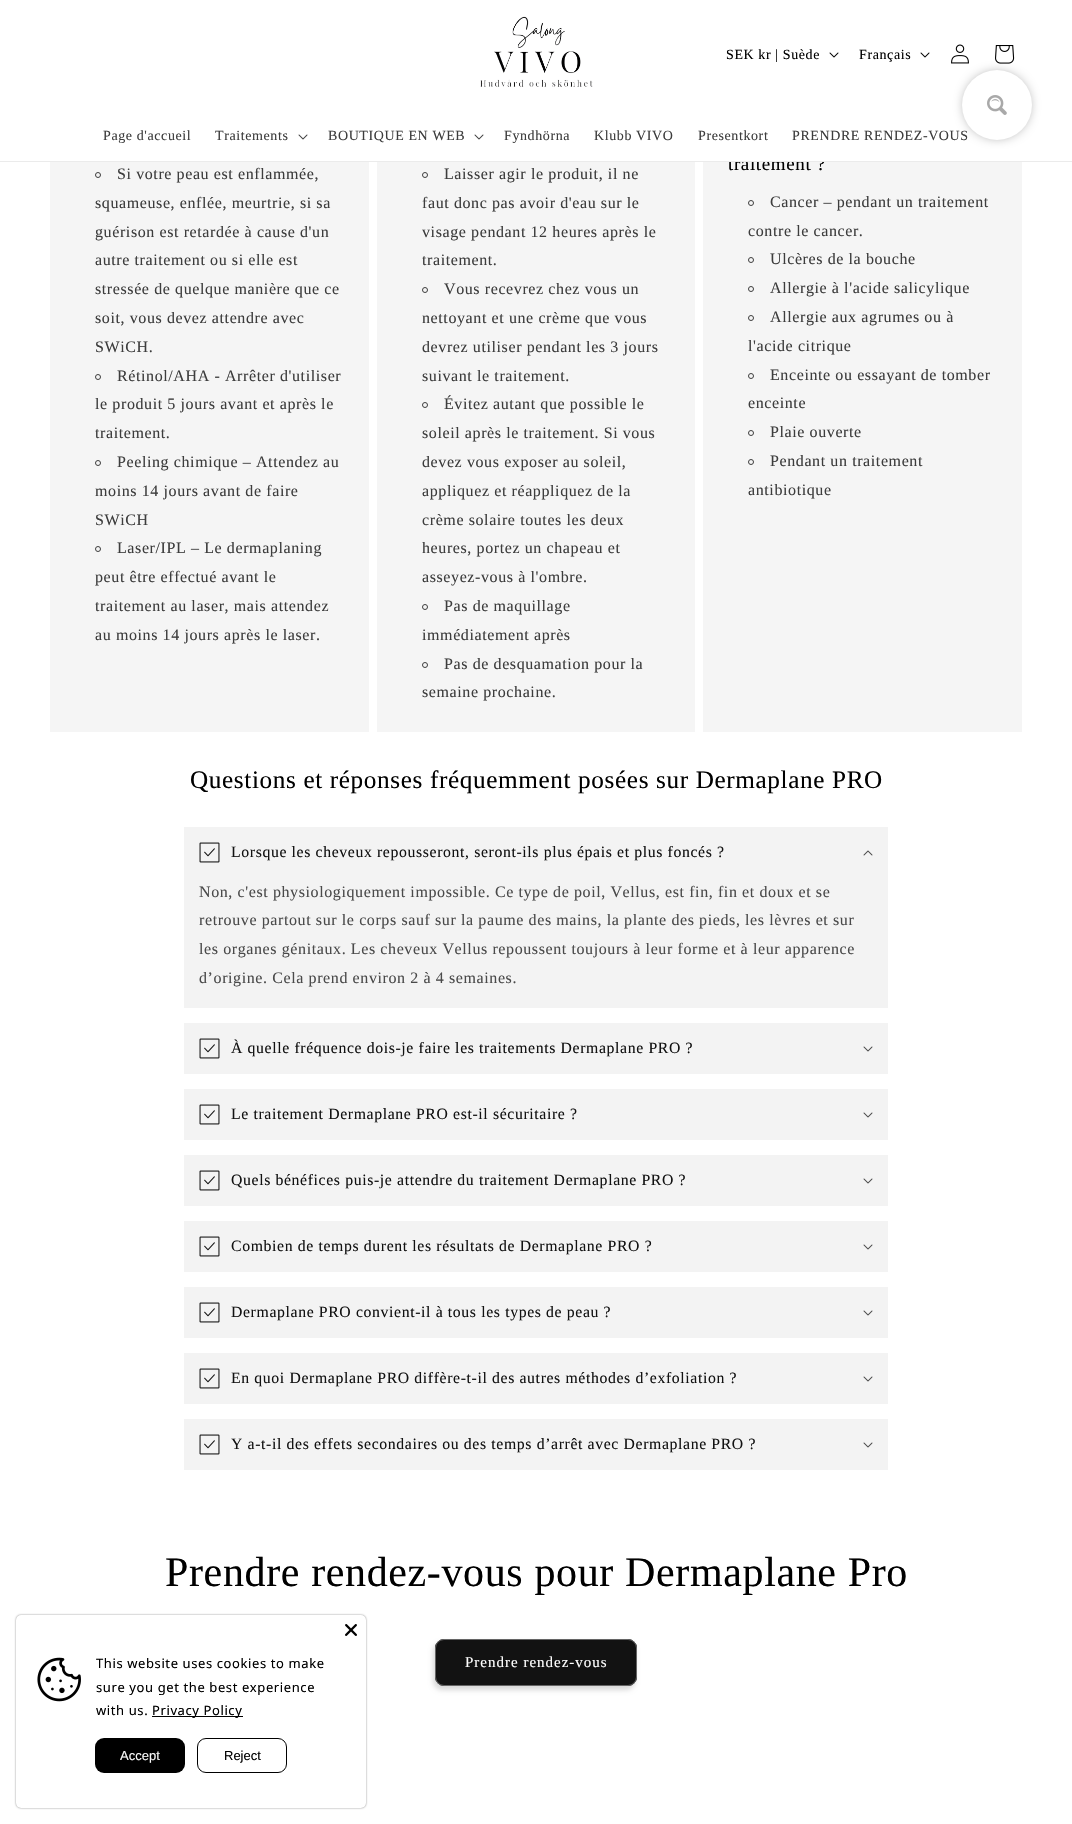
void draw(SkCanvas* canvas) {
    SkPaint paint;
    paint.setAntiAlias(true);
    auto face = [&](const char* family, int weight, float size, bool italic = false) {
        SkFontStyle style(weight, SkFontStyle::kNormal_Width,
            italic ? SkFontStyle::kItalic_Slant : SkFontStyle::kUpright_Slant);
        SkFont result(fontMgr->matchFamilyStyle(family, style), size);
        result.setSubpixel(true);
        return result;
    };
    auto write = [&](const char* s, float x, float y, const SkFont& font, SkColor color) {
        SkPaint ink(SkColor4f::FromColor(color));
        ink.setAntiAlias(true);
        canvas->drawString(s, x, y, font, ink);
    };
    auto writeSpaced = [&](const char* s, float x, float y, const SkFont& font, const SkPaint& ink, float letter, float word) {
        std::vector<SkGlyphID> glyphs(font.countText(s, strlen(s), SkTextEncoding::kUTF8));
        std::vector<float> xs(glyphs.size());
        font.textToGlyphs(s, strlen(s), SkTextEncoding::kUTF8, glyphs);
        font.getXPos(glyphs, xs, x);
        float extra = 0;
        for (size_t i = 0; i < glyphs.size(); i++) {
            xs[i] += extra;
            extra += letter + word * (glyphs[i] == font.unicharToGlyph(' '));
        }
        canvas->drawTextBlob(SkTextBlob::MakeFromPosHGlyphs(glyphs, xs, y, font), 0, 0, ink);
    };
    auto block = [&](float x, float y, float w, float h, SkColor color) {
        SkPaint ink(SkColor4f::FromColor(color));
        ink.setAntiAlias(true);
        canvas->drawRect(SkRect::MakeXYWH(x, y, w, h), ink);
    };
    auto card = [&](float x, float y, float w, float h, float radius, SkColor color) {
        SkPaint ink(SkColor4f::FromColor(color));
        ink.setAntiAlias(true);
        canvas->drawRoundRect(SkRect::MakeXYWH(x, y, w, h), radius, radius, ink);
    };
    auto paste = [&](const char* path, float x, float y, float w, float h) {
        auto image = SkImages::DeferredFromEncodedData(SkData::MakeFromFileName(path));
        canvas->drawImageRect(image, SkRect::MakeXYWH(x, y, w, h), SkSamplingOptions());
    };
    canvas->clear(SK_ColorWHITE);
    block(703, 162, 319, 570, SkColorSetRGB(245, 245, 245));
    auto kFont1 = face("Liberation Serif", 400, 19);
    paint.setColor(SK_ColorBLACK);
    writeSpaced("traitement ?", 728, 170, kFont1, paint, 0.63f, 0);
    block(729, 157, 96, 4, SK_ColorWHITE);
    block(0, 161, 1072, 1, SkColorSetRGB(235, 235, 235));
    paste("pic1.png", 480, 16, 113, 71);
    auto kFont2 = face("Liberation Serif", 400, 14);
    writeSpaced("SEK kr | Suède", 726, 59, kFont2, paint, 0.6f, 0);
    paste("pic2.png", 829, 52, 10, 6);
    writeSpaced("Français", 859, 59, kFont2, paint, 0.6f, 0);
    paste("pic2.png", 920, 52, 10, 6);
    paste("pic3.png", 951, 44, 18, 20);
    paste("pic4.png", 995, 45, 20, 19);
    paint.setColor(SkColorSetRGB(61, 61, 61));
    writeSpaced("Page d'accueil", 103, 140, kFont2, paint, 0.6f, 0);
    writeSpaced("Traitements", 215, 140, kFont2, paint, 0.6f, 0);
    paste("pic5.png", 298, 134, 10, 6);
    writeSpaced("BOUTIQUE EN WEB", 328, 140, kFont2, paint, 0.6f, 0);
    paste("pic5.png", 474, 134, 10, 6);
    writeSpaced("Fyndhörna", 504, 140, kFont2, paint, 0.6f, 0);
    writeSpaced("Klubb VIVO", 594, 140, kFont2, paint, 0.6f, 0);
    writeSpaced("Presentkort", 698, 140, kFont2, paint, 0.6f, 0);
    writeSpaced("PRENDRE RENDEZ-VOUS", 792, 140, kFont2, paint, 0.6f, 0);
    paint.setColor(SK_ColorBLACK);
    paint.setMaskFilter(SkMaskFilter::MakeBlur(kNormal_SkBlurStyle, 7.5f));
    canvas->drawRoundRect(SkRect::MakeXYWH(970, 78, 54, 54), 27, 27, paint);
    paint.setMaskFilter(nullptr);
    paint.setColor(SK_ColorWHITE);
    canvas->drawCircle(997, 105, 35, paint);
    paste("pic6.png", 987, 95, 20, 20);
    block(50, 162, 319, 570, SkColorSetRGB(245, 245, 245));
    paint.setStyle(SkPaint::kStroke_Style);
    paint.setStrokeWidth(1);
    paint.setColor(SkColorSetRGB(61, 61, 61));
    canvas->drawCircle(98, 175, 2.5f, paint);
    auto kFont3 = face("Liberation Serif", 400, 16);
    paint.setStyle(SkPaint::kFill_Style);
    writeSpaced("Si votre peau est enflammée,", 117, 179, kFont3, paint, 0.6f, 0);
    writeSpaced("squameuse, enflée, meurtrie, si sa", 95, 208, kFont3, paint, 0.6f, 0);
    writeSpaced("guérison est retardée à cause d'un", 95, 237, kFont3, paint, 0.6f, 0);
    writeSpaced("autre traitement ou si elle est", 95, 265, kFont3, paint, 0.6f, 0);
    writeSpaced("stressée de quelque manière que ce", 95, 294, kFont3, paint, 0.6f, 0);
    writeSpaced("soit, vous devez attendre avec", 95, 323, kFont3, paint, 0.6f, 0);
    writeSpaced("SWiCH.", 95, 352, kFont3, paint, 0.6f, 0);
    paint.setStyle(SkPaint::kStroke_Style);
    canvas->drawCircle(98, 377, 2.5f, paint);
    paint.setStyle(SkPaint::kFill_Style);
    writeSpaced("Rétinol/AHA - Arrêter d'utiliser", 117, 381, kFont3, paint, 0.6f, 0);
    writeSpaced("le produit 5 jours avant et après le", 95, 409, kFont3, paint, 0.6f, 0);
    writeSpaced("traitement.", 95, 438, kFont3, paint, 0.6f, 0);
    paint.setStyle(SkPaint::kStroke_Style);
    canvas->drawCircle(98, 463, 2.5f, paint);
    paint.setStyle(SkPaint::kFill_Style);
    writeSpaced("Peeling chimique – Attendez au", 117, 467, kFont3, paint, 0.6f, 0);
    writeSpaced("moins 14 jours avant de faire", 95, 496, kFont3, paint, 0.6f, 0);
    writeSpaced("SWiCH", 95, 525, kFont3, paint, 0.6f, 0);
    paint.setStyle(SkPaint::kStroke_Style);
    canvas->drawCircle(98, 549, 2.5f, paint);
    paint.setStyle(SkPaint::kFill_Style);
    writeSpaced("Laser/IPL – Le dermaplaning", 117, 553, kFont3, paint, 0.6f, 0);
    writeSpaced("peut être effectué avant le", 95, 582, kFont3, paint, 0.6f, 0);
    writeSpaced("traitement au laser, mais attendez", 95, 611, kFont3, paint, 0.6f, 0);
    writeSpaced("au moins 14 jours après le laser.", 95, 640, kFont3, paint, 0.6f, 0);
    block(377, 162, 318, 570, SkColorSetRGB(245, 245, 245));
    paint.setStyle(SkPaint::kStroke_Style);
    canvas->drawCircle(425, 175, 2.5f, paint);
    paint.setStyle(SkPaint::kFill_Style);
    writeSpaced("Laisser agir le produit, il ne", 444, 179, kFont3, paint, 0.6f, 0);
    writeSpaced("faut donc pas avoir d'eau sur le", 422, 208, kFont3, paint, 0.6f, 0);
    writeSpaced("visage pendant 12 heures après le", 422, 237, kFont3, paint, 0.6f, 0);
    writeSpaced("traitement.", 422, 265, kFont3, paint, 0.6f, 0);
    paint.setStyle(SkPaint::kStroke_Style);
    canvas->drawCircle(425, 290, 2.5f, paint);
    paint.setStyle(SkPaint::kFill_Style);
    writeSpaced("Vous recevrez chez vous un", 444, 294, kFont3, paint, 0.6f, 0);
    writeSpaced("nettoyant et une crème que vous", 422, 323, kFont3, paint, 0.6f, 0);
    writeSpaced("devrez utiliser pendant les 3 jours", 422, 352, kFont3, paint, 0.6f, 0);
    writeSpaced("suivant le traitement.", 422, 381, kFont3, paint, 0.6f, 0);
    paint.setStyle(SkPaint::kStroke_Style);
    canvas->drawCircle(425, 405, 2.5f, paint);
    paint.setStyle(SkPaint::kFill_Style);
    writeSpaced("Évitez autant que possible le", 444, 409, kFont3, paint, 0.6f, 0);
    writeSpaced("soleil après le traitement. Si vous", 422, 438, kFont3, paint, 0.6f, 0);
    writeSpaced("devez vous exposer au soleil,", 422, 467, kFont3, paint, 0.6f, 0);
    writeSpaced("appliquez et réappliquez de la", 422, 496, kFont3, paint, 0.6f, 0);
    writeSpaced("crème solaire toutes les deux", 422, 525, kFont3, paint, 0.6f, 0);
    writeSpaced("heures, portez un chapeau et", 422, 553, kFont3, paint, 0.6f, 0);
    writeSpaced("asseyez-vous à l'ombre.", 422, 582, kFont3, paint, 0.6f, 0);
    paint.setStyle(SkPaint::kStroke_Style);
    canvas->drawCircle(425, 607, 2.5f, paint);
    paint.setStyle(SkPaint::kFill_Style);
    writeSpaced("Pas de maquillage", 444, 611, kFont3, paint, 0.6f, 0);
    writeSpaced("immédiatement après", 422, 640, kFont3, paint, 0.6f, 0);
    paint.setStyle(SkPaint::kStroke_Style);
    canvas->drawCircle(425, 665, 2.5f, paint);
    paint.setStyle(SkPaint::kFill_Style);
    writeSpaced("Pas de desquamation pour la", 444, 669, kFont3, paint, 0.6f, 0);
    writeSpaced("semaine prochaine.", 422, 697, kFont3, paint, 0.6f, 0);
    paint.setStyle(SkPaint::kStroke_Style);
    canvas->drawCircle(751, 203, 2.5f, paint);
    paint.setStyle(SkPaint::kFill_Style);
    writeSpaced("Cancer – pendant un traitement", 770, 207, kFont3, paint, 0.6f, 0);
    writeSpaced("contre le cancer.", 748, 236, kFont3, paint, 0.6f, 0);
    paint.setStyle(SkPaint::kStroke_Style);
    canvas->drawCircle(751, 260, 2.5f, paint);
    paint.setStyle(SkPaint::kFill_Style);
    writeSpaced("Ulcères de la bouche", 770, 264, kFont3, paint, 0.6f, 0);
    paint.setStyle(SkPaint::kStroke_Style);
    canvas->drawCircle(751, 289, 2.5f, paint);
    paint.setStyle(SkPaint::kFill_Style);
    writeSpaced("Allergie à l'acide salicylique", 770, 293, kFont3, paint, 0.6f, 0);
    paint.setStyle(SkPaint::kStroke_Style);
    canvas->drawCircle(751, 318, 2.5f, paint);
    paint.setStyle(SkPaint::kFill_Style);
    writeSpaced("Allergie aux agrumes ou à", 770, 322, kFont3, paint, 0.6f, 0);
    writeSpaced("l'acide citrique", 748, 351, kFont3, paint, 0.6f, 0);
    paint.setStyle(SkPaint::kStroke_Style);
    canvas->drawCircle(751, 376, 2.5f, paint);
    paint.setStyle(SkPaint::kFill_Style);
    writeSpaced("Enceinte ou essayant de tomber", 770, 380, kFont3, paint, 0.6f, 0);
    writeSpaced("enceinte", 748, 408, kFont3, paint, 0.6f, 0);
    paint.setStyle(SkPaint::kStroke_Style);
    canvas->drawCircle(751, 433, 2.5f, paint);
    paint.setStyle(SkPaint::kFill_Style);
    writeSpaced("Plaie ouverte", 770, 437, kFont3, paint, 0.6f, 0);
    paint.setStyle(SkPaint::kStroke_Style);
    canvas->drawCircle(751, 462, 2.5f, paint);
    paint.setStyle(SkPaint::kFill_Style);
    writeSpaced("Pendant un traitement", 770, 466, kFont3, paint, 0.6f, 0);
    writeSpaced("antibiotique", 748, 495, kFont3, paint, 0.6f, 0);
    auto kFont4 = face("Liberation Serif", 400, 25.2f);
    paint.setColor(SK_ColorBLACK);
    writeSpaced("Questions et réponses fréquemment posées sur Dermaplane PRO", 190, 788, kFont4, paint, 0.63f, 0);
    block(184, 827, 704, 181, SkColorSetRGB(243, 243, 243));
    paste("pic7.png", 199, 842, 21, 21);
    auto kFont5 = face("Liberation Serif", 400, 15.75f);
    paint.setColor(SkColorSetRGB(18, 18, 18));
    writeSpaced("Lorsque les cheveux repousseront, seront-ils plus épais et plus foncés ?", 231, 857, kFont5, paint, 0.63f, 0);
    paste("pic8.png", 863, 850, 10, 6);
    paint.setColor(SkColorSetRGB(74, 74, 74));
    writeSpaced("Non, c'est physiologiquement impossible. Ce type de poil, Vellus, est fin, fin et doux et se", 199, 897, kFont3, paint, 0.6f, 0);
    writeSpaced("retrouve partout sur le corps sauf sur la paume des mains, la plante des pieds, les lèvres et sur", 199, 925, kFont3, paint, 0.6f, 0);
    writeSpaced("les organes génitaux. Les cheveux Vellus repoussent toujours à leur forme et à leur apparence", 199, 954, kFont3, paint, 0.6f, 0);
    writeSpaced("d’origine. Cela prend environ 2 à 4 semaines.", 199, 983, kFont3, paint, 0.6f, 0);
    block(184, 1023, 704, 51, SkColorSetRGB(243, 243, 243));
    paste("pic7.png", 199, 1038, 21, 21);
    paint.setColor(SkColorSetRGB(18, 18, 18));
    writeSpaced("À quelle fréquence dois-je faire les traitements Dermaplane PRO ?", 231, 1053, kFont5, paint, 0.63f, 0);
    paste("pic9.png", 863, 1046, 10, 6);
    block(184, 1089, 704, 51, SkColorSetRGB(243, 243, 243));
    paste("pic7.png", 199, 1104, 21, 21);
    writeSpaced("Le traitement Dermaplane PRO est-il sécuritaire ?", 231, 1119, kFont5, paint, 0.63f, 0);
    paste("pic9.png", 863, 1112, 10, 6);
    block(184, 1155, 704, 51, SkColorSetRGB(243, 243, 243));
    paste("pic7.png", 199, 1170, 21, 21);
    writeSpaced("Quels bénéfices puis-je attendre du traitement Dermaplane PRO ?", 231, 1185, kFont5, paint, 0.63f, 0);
    paste("pic9.png", 863, 1178, 10, 6);
    block(184, 1221, 704, 51, SkColorSetRGB(243, 243, 243));
    paste("pic7.png", 199, 1236, 21, 21);
    writeSpaced("Combien de temps durent les résultats de Dermaplane PRO ?", 231, 1251, kFont5, paint, 0.63f, 0);
    paste("pic9.png", 863, 1244, 10, 6);
    block(184, 1287, 704, 51, SkColorSetRGB(243, 243, 243));
    paste("pic7.png", 199, 1302, 21, 21);
    writeSpaced("Dermaplane PRO convient-il à tous les types de peau ?", 231, 1317, kFont5, paint, 0.63f, 0);
    paste("pic9.png", 863, 1310, 10, 6);
    block(184, 1353, 704, 51, SkColorSetRGB(243, 243, 243));
    paste("pic7.png", 199, 1368, 21, 21);
    writeSpaced("En quoi Dermaplane PRO diffère-t-il des autres méthodes d’exfoliation ?", 231, 1383, kFont5, paint, 0.63f, 0);
    paste("pic9.png", 863, 1376, 10, 6);
    block(184, 1419, 704, 51, SkColorSetRGB(243, 243, 243));
    paste("pic7.png", 199, 1434, 21, 21);
    writeSpaced("Y a-t-il des effets secondaires ou des temps d’arrêt avec Dermaplane PRO ?", 231, 1449, kFont5, paint, 0.63f, 0);
    paste("pic9.png", 863, 1442, 10, 6);
    auto kFont6 = face("Liberation Serif", 400, 42);
    paint.setColor(SK_ColorBLACK);
    writeSpaced("Prendre rendez-vous pour Dermaplane Pro", 165, 1586, kFont6, paint, 0.63f, 0);
    paint.setColor(SkColorSetARGB(38, 0, 0, 0));
    paint.setMaskFilter(SkMaskFilter::MakeBlur(kNormal_SkBlurStyle, 2.5f));
    canvas->drawRoundRect(SkRect::MakeXYWH(433, 1643, 202, 47), 9, 9, paint);
    paint.setMaskFilter(nullptr);
    card(435, 1639, 202, 47, 9, SkColorSetRGB(18, 18, 18));
    paint.setStyle(SkPaint::kStroke_Style);
    paint.setColor(SkColorSetRGB(18, 18, 18));
    canvas->drawRoundRect(SkRect::MakeXYWH(435.5f, 1639.5f, 201, 46), 8.5f, 8.5f, paint);
    paint.setColor(SkColorSetARGB(89, 255, 255, 255));
    canvas->drawRoundRect(SkRect::MakeXYWH(435.5f, 1639.5f, 201, 46), 8.5f, 8.5f, paint);
    auto kFont7 = face("Liberation Serif", 400, 15);
    paint.setStyle(SkPaint::kFill_Style);
    paint.setColor(SK_ColorWHITE);
    writeSpaced("Prendre rendez-vous", 465, 1667, kFont7, paint, 1, 0);
    paint.setColor(SkColorSetARGB(128, 0, 0, 0));
    paint.setMaskFilter(SkMaskFilter::MakeBlur(kNormal_SkBlurStyle, 1));
    canvas->drawRoundRect(SkRect::MakeXYWH(16, 1615, 350, 193), 5, 5, paint);
    paint.setMaskFilter(nullptr);
    card(16, 1615, 350, 193, 5, SK_ColorWHITE);
    paste("pic10.png", 345, 1624, 12, 12);
    paste("pic11.png", 37, 1657, 44, 45);
    auto kFont8 = face("Noto Sans", 400, 13);
    paint.setColor(SK_ColorBLACK);
    writeSpaced("This website uses cookies to make", 96, 1668, kFont8, paint, 0.6f, 0);
    writeSpaced("sure you get the best experience", 96, 1692, kFont8, paint, 0.6f, 0);
    writeSpaced("with us.", 96, 1715, kFont8, paint, 0.6f, 0);
    block(152, 1716, 91, 1, SK_ColorBLACK);
    writeSpaced("Privacy Policy", 152, 1715, kFont8, paint, 0.6f, 0);
    card(95, 1738, 90, 35, 9, SK_ColorBLACK);
    auto kFont9 = face("Liberation Sans", 400, 13);
    write("Accept", 120, 1760, kFont9, SkColorSetRGB(248, 248, 248));
    paint.setStyle(SkPaint::kStroke_Style);
    canvas->drawRoundRect(SkRect::MakeXYWH(197.5f, 1738.5f, 89, 34), 8.5f, 8.5f, paint);
    write("Reject", 224, 1760, kFont9, SK_ColorBLACK);
}
